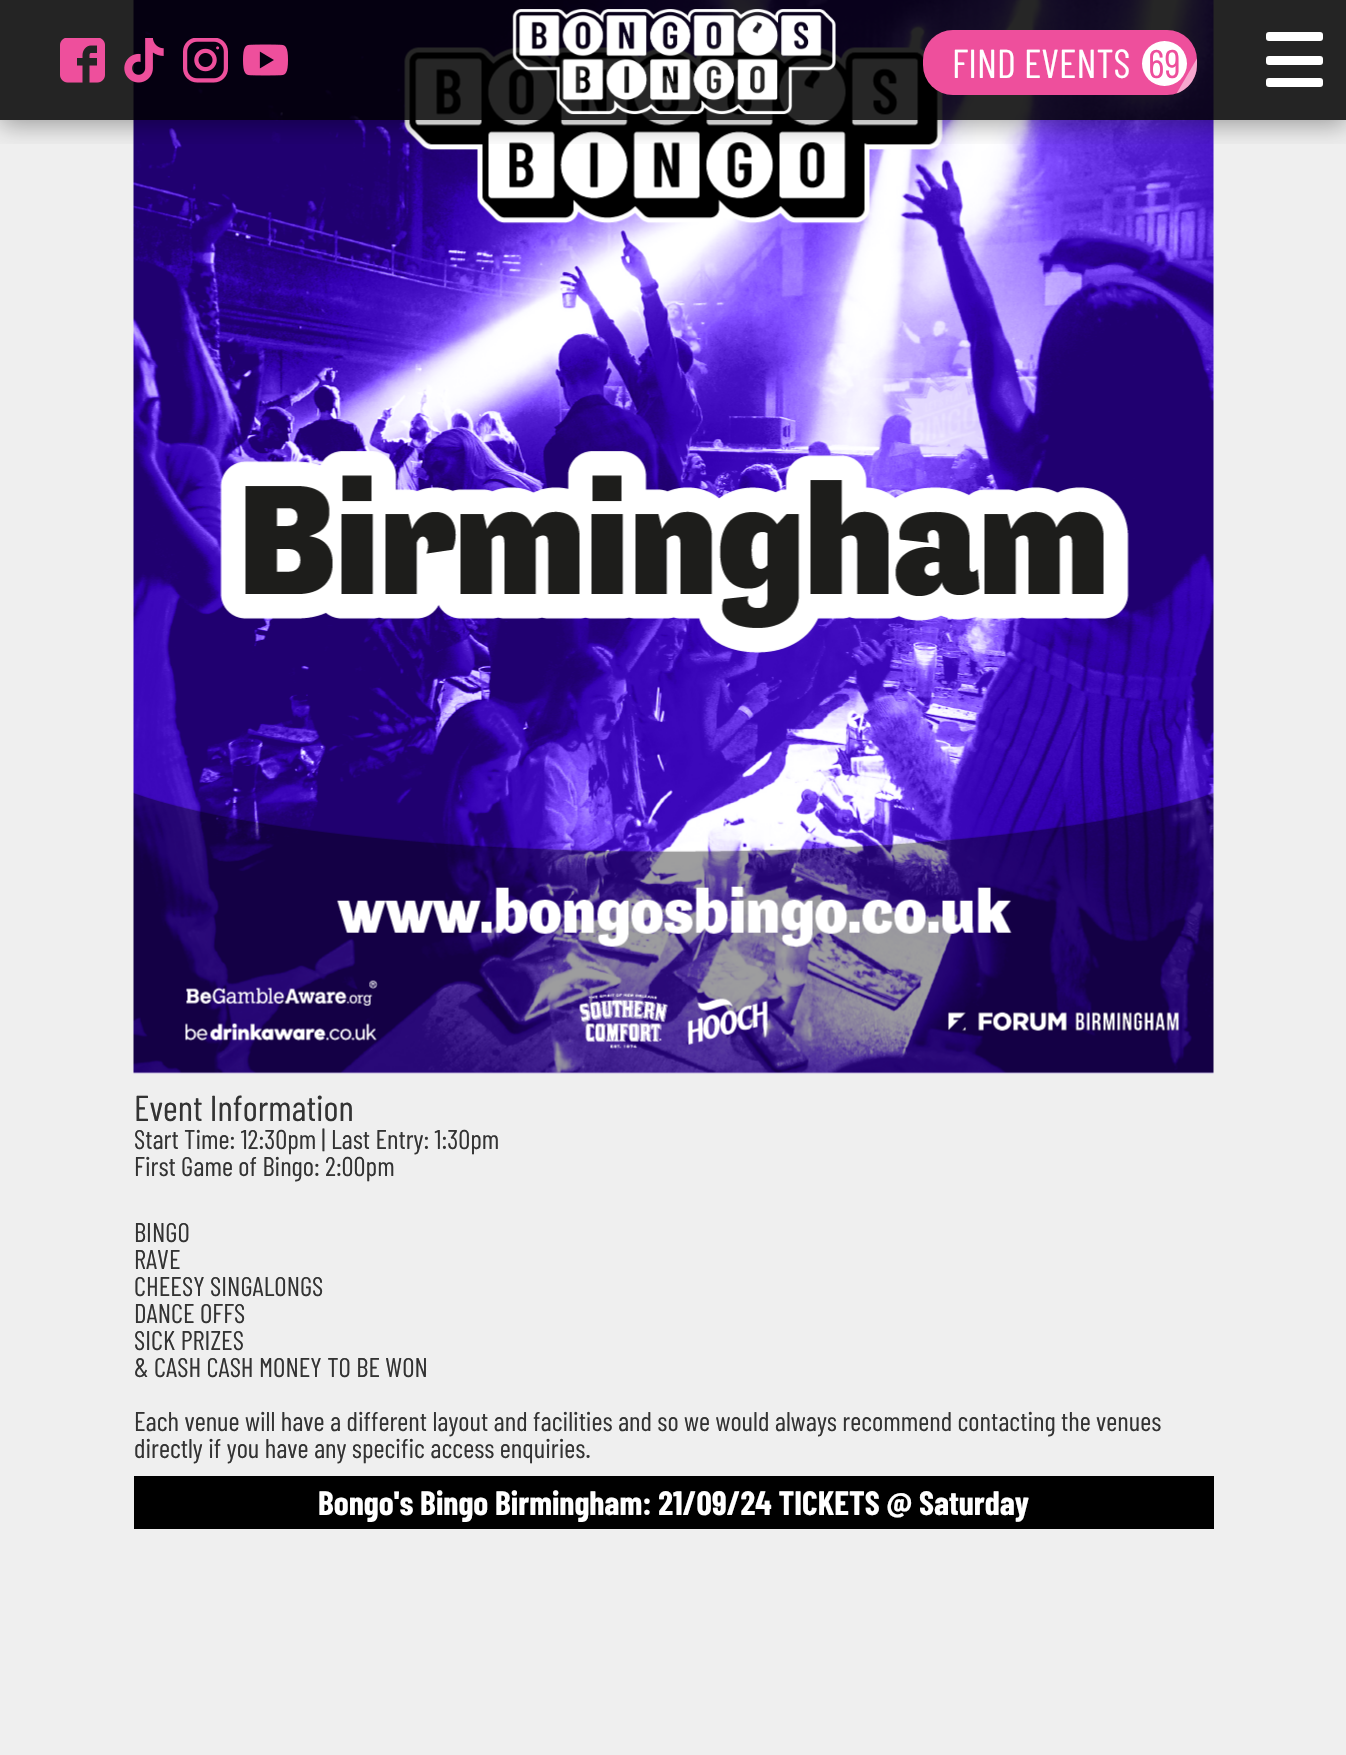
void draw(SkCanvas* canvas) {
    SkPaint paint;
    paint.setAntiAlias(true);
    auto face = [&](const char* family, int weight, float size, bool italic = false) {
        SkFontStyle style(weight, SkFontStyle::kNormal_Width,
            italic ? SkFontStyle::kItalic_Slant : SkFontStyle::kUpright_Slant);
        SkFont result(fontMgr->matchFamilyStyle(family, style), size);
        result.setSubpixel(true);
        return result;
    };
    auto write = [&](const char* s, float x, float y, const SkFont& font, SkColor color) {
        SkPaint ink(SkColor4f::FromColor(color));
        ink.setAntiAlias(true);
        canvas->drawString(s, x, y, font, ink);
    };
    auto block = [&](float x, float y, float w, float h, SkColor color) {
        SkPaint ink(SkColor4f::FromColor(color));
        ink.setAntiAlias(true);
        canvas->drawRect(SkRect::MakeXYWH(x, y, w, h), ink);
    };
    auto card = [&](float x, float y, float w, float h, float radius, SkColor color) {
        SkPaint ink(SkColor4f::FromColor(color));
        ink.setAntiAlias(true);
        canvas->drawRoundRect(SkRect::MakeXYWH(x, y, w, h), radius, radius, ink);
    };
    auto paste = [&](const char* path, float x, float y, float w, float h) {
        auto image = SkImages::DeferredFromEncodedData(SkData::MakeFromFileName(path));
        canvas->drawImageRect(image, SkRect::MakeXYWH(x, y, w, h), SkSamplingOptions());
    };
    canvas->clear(SkColorSetRGB(239, 239, 239));
    paste("pic6.png", 133, 0, 1081, 1074);
    canvas->save();
    canvas->clipRect(SkRect::MakeXYWH(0, 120, 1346, 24));
    paint.setColor(SkColorSetARGB(89, 0, 0, 0));
    paint.setMaskFilter(SkMaskFilter::MakeBlur(kNormal_SkBlurStyle, 12));
    canvas->drawRect(SkRect::MakeXYWH(0, 5, 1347, 120), paint);
    paint.setMaskFilter(nullptr);
    canvas->restore();
    block(0, 0, 1346, 120, SkColorSetARGB(217, 0, 0, 0));
    paste("pic1.png", 60, 38, 45, 45);
    paste("pic2.png", 124, 38, 40, 45);
    paste("pic3.png", 183, 38, 45, 45);
    paste("pic4.png", 243, 44, 45, 32);
    paste("pic5.png", 512, 9, 324, 106);
    card(923, 30, 274, 65, 30, SkColorSetRGB(238, 79, 156));
    auto kFont1 = face("Barlow Condensed", 400, 40.5f);
    write("FIND EVENTS", 952, 78, kFont1, SK_ColorWHITE);
    paint.setColor(SK_ColorWHITE);
    canvas->drawCircle(1164.5f, 63.5f, 22.5f, paint);
    auto kFont2 = face("Barlow Condensed", 400, 40);
    write("69", 1148, 78, kFont2, SkColorSetRGB(238, 79, 156));
    paint.setColor(SkColorSetARGB(128, 255, 255, 255));
    canvas->drawPath(SkPathBuilder().moveTo(1176.5f, 93.5f).lineTo(1197, 58.5f).cubicTo(1197, 62, 1197, 66, 1196.5f, 70).cubicTo(1195, 80.5f, 1187, 90, 1176.5f, 93.5f).close().detach(), paint);
    card(1266, 32, 57, 9, 3, SK_ColorWHITE);
    card(1266, 56, 57, 9, 3, SK_ColorWHITE);
    card(1266, 78, 57, 9, 3, SK_ColorWHITE);
    auto kFont3 = face("Barlow Condensed", 400, 36);
    write("Event Information", 134, 1121, kFont3, SkColorSetRGB(51, 51, 51));
    auto kFont4 = face("Barlow Condensed", 400, 27);
    write("Start Time: 12:30pm | Last Entry: 1:30pm", 134, 1149, kFont4, SkColorSetRGB(51, 51, 51));
    write("First Game of Bingo: 2:00pm", 134, 1176, kFont4, SkColorSetRGB(51, 51, 51));
    write("BINGO", 134, 1242, kFont4, SkColorSetRGB(51, 51, 51));
    write("RAVE", 134, 1269, kFont4, SkColorSetRGB(51, 51, 51));
    write("CHEESY SINGALONGS", 134, 1296, kFont4, SkColorSetRGB(51, 51, 51));
    write("DANCE OFFS", 134, 1323, kFont4, SkColorSetRGB(51, 51, 51));
    write("SICK PRIZES", 134, 1350, kFont4, SkColorSetRGB(51, 51, 51));
    write("& CASH CASH MONEY TO BE WON", 134, 1377, kFont4, SkColorSetRGB(51, 51, 51));
    write("Each venue will have a different layout and facilities and so we would always recommend contacting the venues", 134, 1431, kFont4, SkColorSetRGB(51, 51, 51));
    write("directly if you have any specific access enquiries.", 134, 1458, kFont4, SkColorSetRGB(51, 51, 51));
    block(134, 1476, 1080, 53, SK_ColorBLACK);
    auto kFont5 = face("Barlow Condensed", 700, 33.75f);
    write("Bongo's Bingo Birmingham: 21/09/24 TICKETS @ Saturday", 318, 1515, kFont5, SK_ColorWHITE);
}
